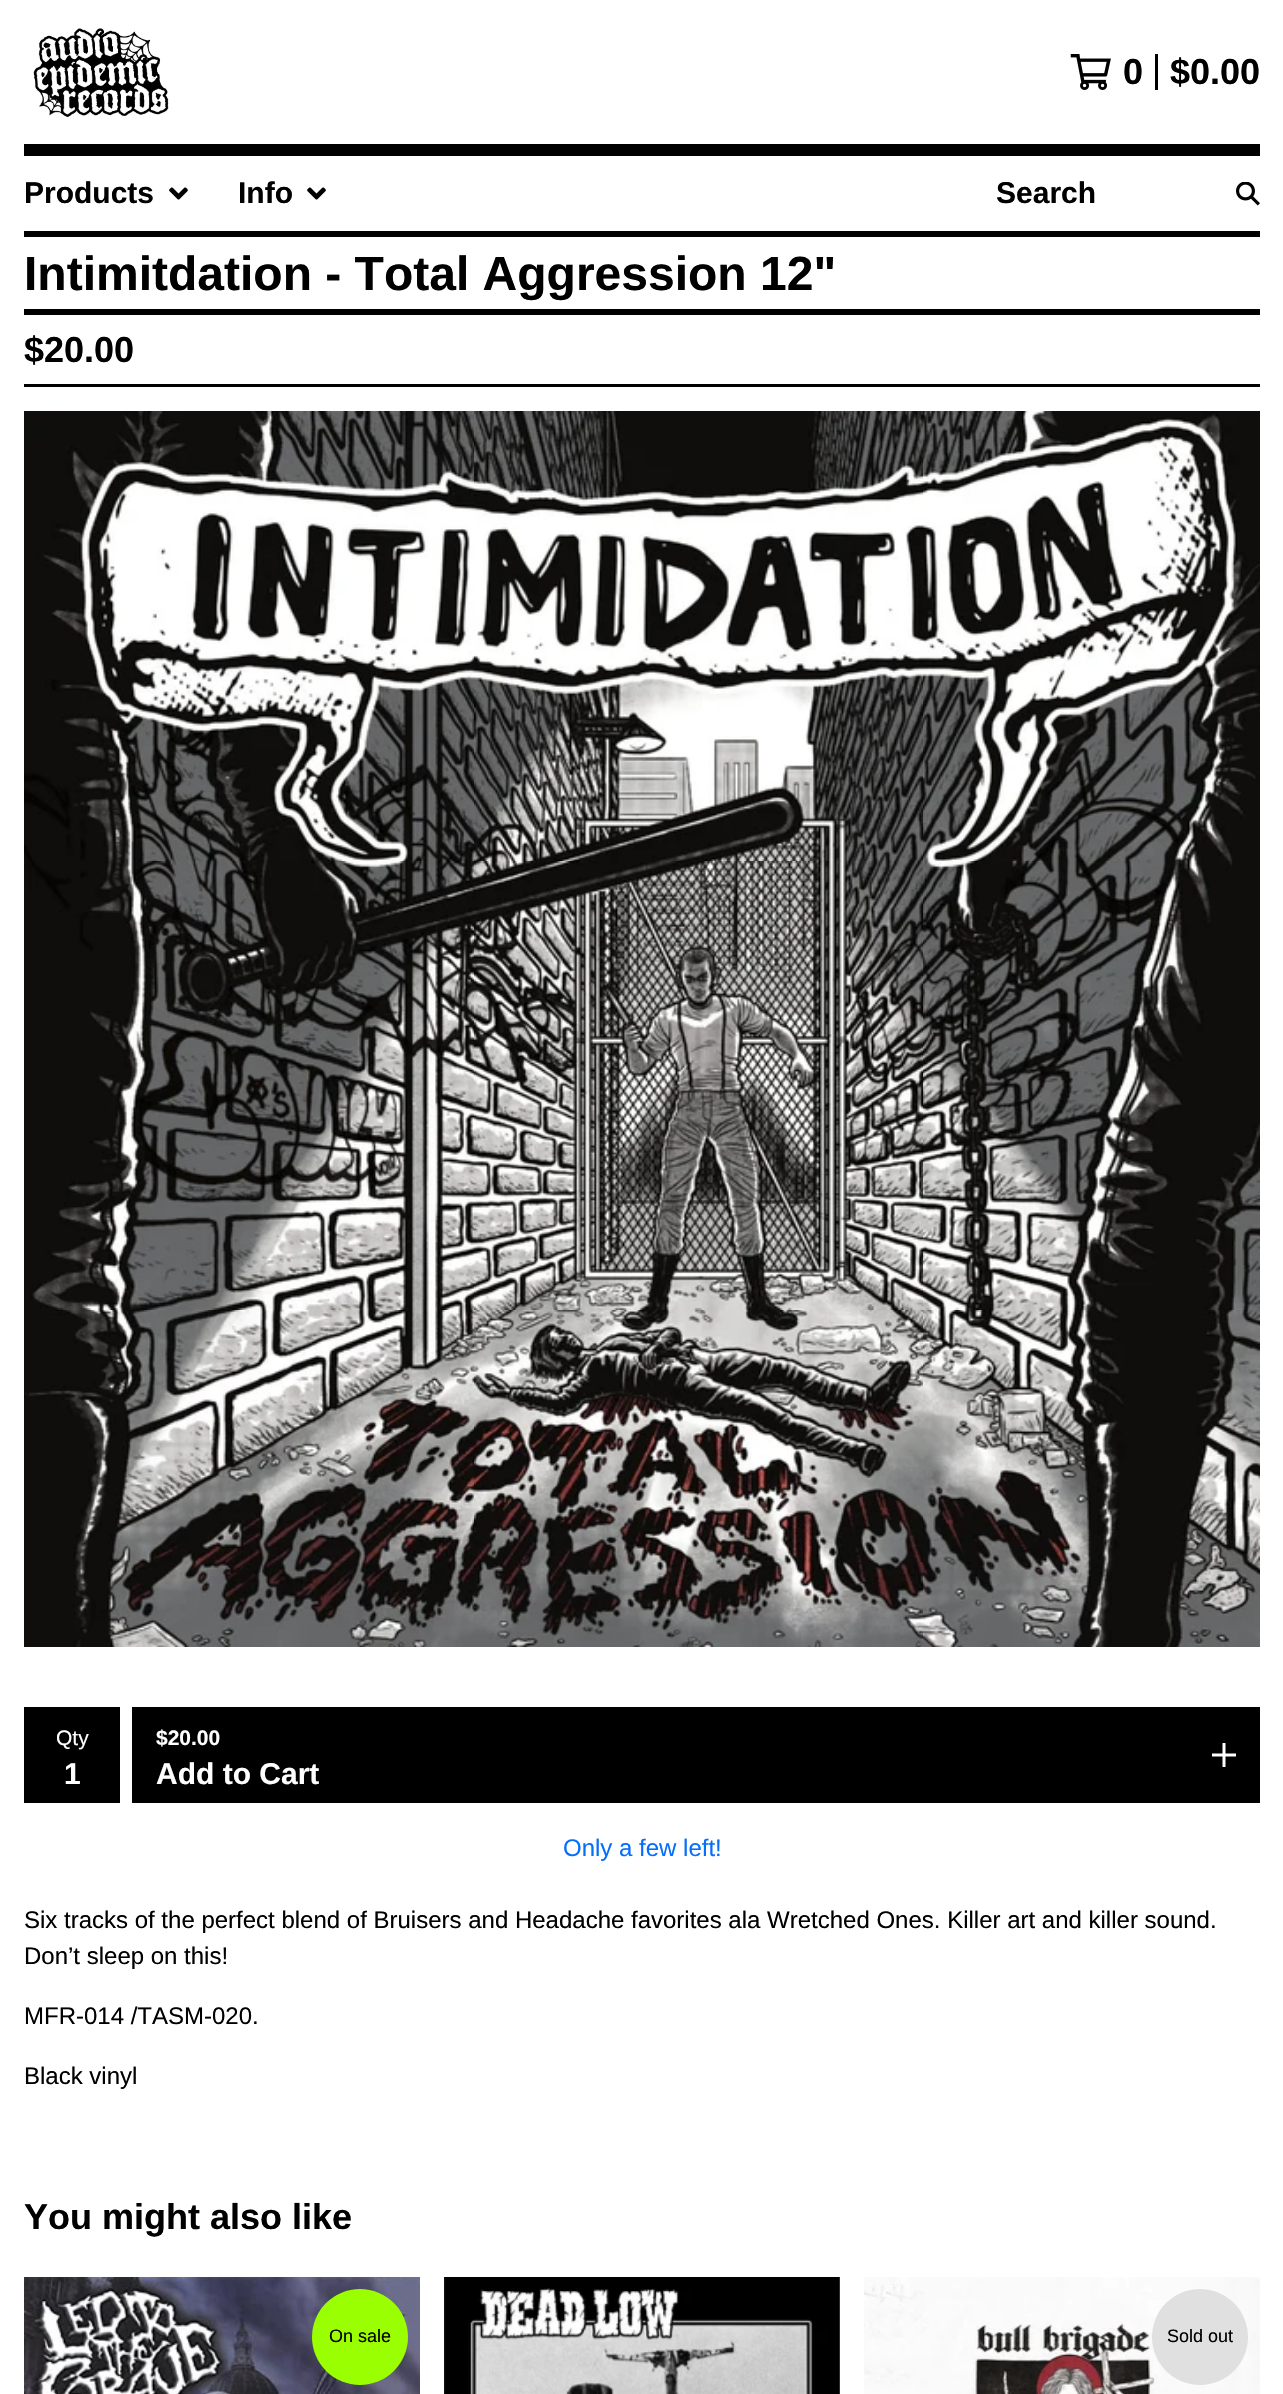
void draw(SkCanvas* canvas) {
    SkPaint paint;
    paint.setAntiAlias(true);
    auto face = [&](const char* family, int weight, float size, bool italic = false) {
        SkFontStyle style(weight, SkFontStyle::kNormal_Width,
            italic ? SkFontStyle::kItalic_Slant : SkFontStyle::kUpright_Slant);
        SkFont result(fontMgr->matchFamilyStyle(family, style), size);
        result.setSubpixel(true);
        return result;
    };
    auto write = [&](const char* s, float x, float y, const SkFont& font, SkColor color) {
        SkPaint ink(SkColor4f::FromColor(color));
        ink.setAntiAlias(true);
        canvas->drawString(s, x, y, font, ink);
    };
    auto block = [&](float x, float y, float w, float h, SkColor color) {
        SkPaint ink(SkColor4f::FromColor(color));
        ink.setAntiAlias(true);
        canvas->drawRect(SkRect::MakeXYWH(x, y, w, h), ink);
    };
    auto paste = [&](const char* path, float x, float y, float w, float h) {
        auto image = SkImages::DeferredFromEncodedData(SkData::MakeFromFileName(path));
        canvas->drawImageRect(image, SkRect::MakeXYWH(x, y, w, h), SkSamplingOptions());
    };
    canvas->clear(SK_ColorWHITE);
    block(24, 144, 1236, 12, SK_ColorBLACK);
    paste("pic1.png", 33, 28, 136, 89);
    paste("pic2.png", 1070, 54, 41, 36);
    block(1155, 54, 3, 36, SK_ColorBLACK);
    auto kFont1 = face("Liberation Sans", 700, 36);
    write("0", 1123, 84, kFont1, SK_ColorBLACK);
    write("$0.00", 1170, 84, kFont1, SK_ColorBLACK);
    block(24, 231, 1236, 6, SK_ColorBLACK);
    auto kFont2 = face("Liberation Sans", 700, 30);
    write("Products", 24, 203, kFont2, SK_ColorBLACK);
    paste("pic3.png", 169, 187, 19, 13);
    write("Info", 238, 203, kFont2, SK_ColorBLACK);
    paste("pic3.png", 307, 187, 19, 13);
    write("Search", 996, 203, kFont2, SK_ColorBLACK);
    paste("pic4.png", 1236, 182, 24, 24);
    block(24, 309, 1236, 6, SK_ColorBLACK);
    auto kFont3 = face("Liberation Sans", 700, 48);
    write("Intimitdation - Total Aggression 12\"", 24, 290, kFont3, SK_ColorBLACK);
    block(24, 384, 1236, 3, SK_ColorBLACK);
    write("$20.00", 24, 362, kFont1, SK_ColorBLACK);
    paste("pic5.png", 24, 411, 1236, 1236);
    block(24, 1707, 96, 96, SK_ColorBLACK);
    auto kFont4 = face("Liberation Sans", 400, 21);
    write("Qty", 56, 1745, kFont4, SK_ColorWHITE);
    write("1", 64, 1784, kFont2, SK_ColorWHITE);
    block(132, 1707, 1128, 96, SK_ColorBLACK);
    auto kFont5 = face("Liberation Sans", 700, 21);
    write("$20.00", 156, 1745, kFont5, SK_ColorWHITE);
    paste("pic6.png", 1212, 1743, 24, 24);
    write("Add to Cart", 156, 1784, kFont2, SK_ColorWHITE);
    auto kFont6 = face("Liberation Sans", 400, 24);
    write("Only a few left!", 563, 1856, kFont6, SkColorSetRGB(5, 111, 250));
    write("Six tracks of the perfect blend of Bruisers and Headache favorites ala Wretched Ones. Killer art and killer sound.", 24, 1928, kFont6, SK_ColorBLACK);
    write("Don’t sleep on this!", 24, 1964, kFont6, SK_ColorBLACK);
    write("MFR-014 /TASM-020.", 24, 2024, kFont6, SK_ColorBLACK);
    write("Black vinyl", 24, 2084, kFont6, SK_ColorBLACK);
    write("You might also like", 24, 2229, kFont1, SK_ColorBLACK);
    paste("pic7.png", 24, 2277, 396, 117);
    paint.setColor(SkColorSetRGB(154, 255, 0));
    canvas->drawCircle(360, 2337, 48, paint);
    auto kFont7 = face("Liberation Sans", 400, 18);
    write("On sale", 329, 2342, kFont7, SK_ColorBLACK);
    paste("pic8.png", 444, 2277, 396, 117);
    paste("pic9.png", 864, 2277, 396, 117);
    paint.setColor(SkColorSetRGB(224, 224, 224));
    canvas->drawCircle(1200, 2337, 48, paint);
    write("Sold out", 1167, 2342, kFont7, SK_ColorBLACK);
}
